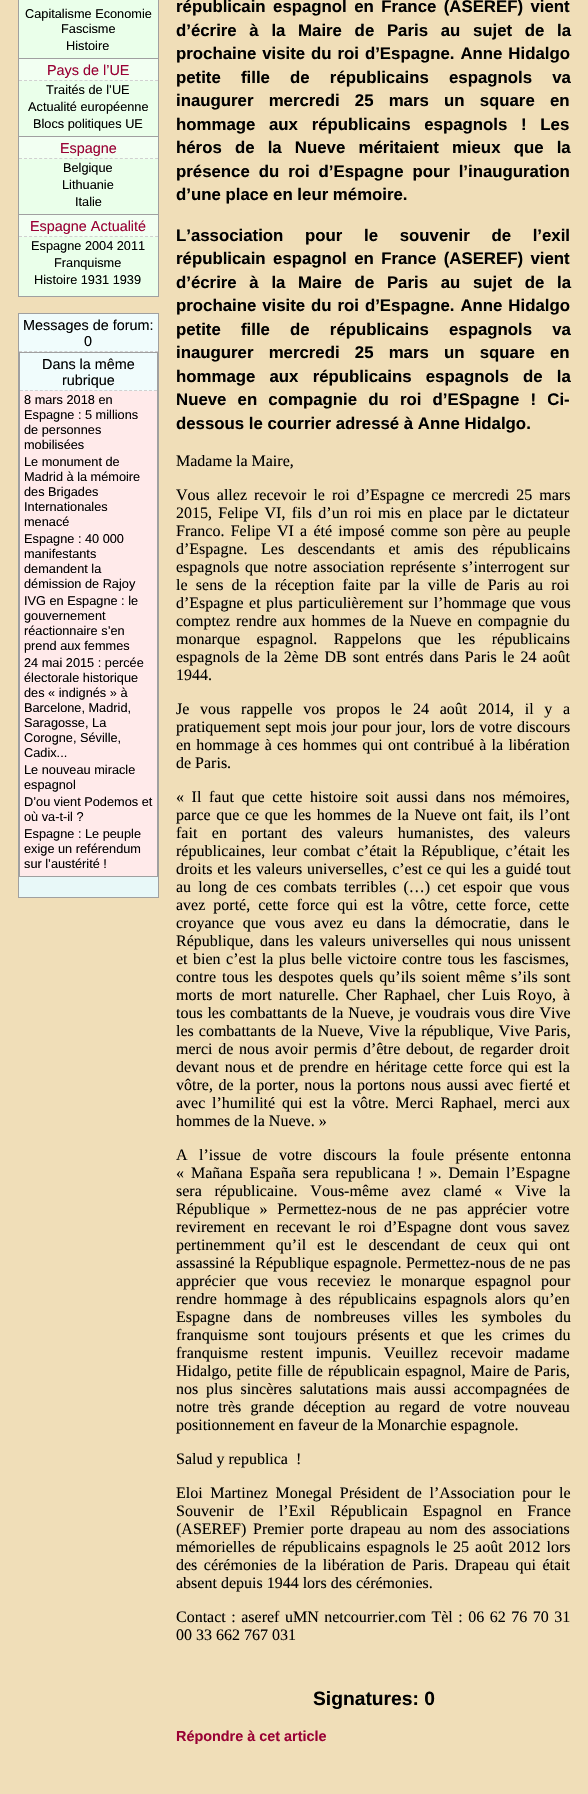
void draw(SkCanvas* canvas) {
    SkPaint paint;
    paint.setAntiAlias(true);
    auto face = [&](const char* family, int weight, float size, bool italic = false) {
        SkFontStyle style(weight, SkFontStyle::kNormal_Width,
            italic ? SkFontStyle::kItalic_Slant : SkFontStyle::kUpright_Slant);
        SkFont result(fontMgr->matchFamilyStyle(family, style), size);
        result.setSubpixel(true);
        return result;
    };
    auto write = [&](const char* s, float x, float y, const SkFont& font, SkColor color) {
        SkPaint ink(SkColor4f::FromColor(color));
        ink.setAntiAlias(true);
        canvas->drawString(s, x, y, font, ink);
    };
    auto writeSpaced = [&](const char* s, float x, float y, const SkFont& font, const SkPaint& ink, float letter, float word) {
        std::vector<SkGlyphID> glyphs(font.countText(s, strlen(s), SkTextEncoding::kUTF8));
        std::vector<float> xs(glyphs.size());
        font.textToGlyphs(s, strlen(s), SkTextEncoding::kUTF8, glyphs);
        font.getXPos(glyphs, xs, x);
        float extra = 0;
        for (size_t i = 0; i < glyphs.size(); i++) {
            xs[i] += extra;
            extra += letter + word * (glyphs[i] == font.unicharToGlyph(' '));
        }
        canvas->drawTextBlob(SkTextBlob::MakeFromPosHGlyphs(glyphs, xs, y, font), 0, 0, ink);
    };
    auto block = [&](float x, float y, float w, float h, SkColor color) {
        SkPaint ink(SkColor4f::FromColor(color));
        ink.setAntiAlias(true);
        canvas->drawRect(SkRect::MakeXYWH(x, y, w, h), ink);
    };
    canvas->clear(SkColorSetRGB(240, 222, 184));
    block(158, 0, 1, 297, SkColorSetRGB(160, 160, 160));
    block(18, 296, 141, 1, SkColorSetRGB(160, 160, 160));
    block(18, 0, 1, 297, SkColorSetRGB(160, 160, 160));
    block(19, 0, 139, 296, SkColorSetRGB(234, 255, 234));
    auto kFont1 = face("Liberation Sans", 400, 12.75f);
    write("Capitalisme Economie", 25, 18, kFont1, SK_ColorBLACK);
    write("Fascisme", 61, 33, kFont1, SK_ColorBLACK);
    write("Histoire", 66, 50, kFont1, SK_ColorBLACK);
    block(19, 59, 139, 22, SkColorSetRGB(242, 255, 242));
    block(19, 58, 139, 1, SkColorSetRGB(160, 160, 160));
    paint.setStyle(SkPaint::kStroke_Style);
    paint.setStrokeWidth(1);
    paint.setColor(SkColorSetRGB(208, 208, 208));
    paint.setPathEffect(SkDashPathEffect::Make({{3, 2.04f}}, 0));
    canvas->drawPath(SkPathBuilder().moveTo(19, 80.5f).lineTo(158, 80.5f).detach(), paint);
    paint.setPathEffect(nullptr);
    auto kFont2 = face("Liberation Sans", 400, 14.4f);
    write("Pays de l’UE", 47, 75, kFont2, SkColorSetRGB(153, 1, 52));
    write("Traités de l’UE", 46, 94, kFont1, SK_ColorBLACK);
    write("Actualité européenne", 28, 111, kFont1, SK_ColorBLACK);
    write("Blocs politiques UE", 33, 128, kFont1, SK_ColorBLACK);
    block(19, 137, 139, 22, SkColorSetRGB(242, 255, 242));
    block(19, 136, 139, 1, SkColorSetRGB(160, 160, 160));
    paint.setPathEffect(SkDashPathEffect::Make({{3, 2.04f}}, 0));
    canvas->drawPath(SkPathBuilder().moveTo(19, 158.5f).lineTo(158, 158.5f).detach(), paint);
    paint.setPathEffect(nullptr);
    write("Espagne", 60, 153, kFont2, SkColorSetRGB(153, 1, 52));
    write("Belgique", 63, 172, kFont1, SK_ColorBLACK);
    write("Lithuanie", 62, 189, kFont1, SK_ColorBLACK);
    write("Italie", 75, 206, kFont1, SK_ColorBLACK);
    block(19, 215, 139, 22, SkColorSetRGB(242, 255, 242));
    block(19, 214, 139, 1, SkColorSetRGB(160, 160, 160));
    paint.setPathEffect(SkDashPathEffect::Make({{3, 2.04f}}, 0));
    canvas->drawPath(SkPathBuilder().moveTo(19, 236.5f).lineTo(158, 236.5f).detach(), paint);
    paint.setPathEffect(nullptr);
    write("Espagne Actualité", 30, 231, kFont2, SkColorSetRGB(153, 1, 52));
    write("Espagne 2004 2011", 31, 250, kFont1, SK_ColorBLACK);
    write("Franquisme", 54, 267, kFont1, SK_ColorBLACK);
    write("Histoire 1931 1939", 34, 284, kFont1, SK_ColorBLACK);
    block(158, 313, 1, 585, SkColorSetRGB(160, 160, 160));
    block(18, 897, 141, 1, SkColorSetRGB(160, 160, 160));
    block(18, 313, 1, 585, SkColorSetRGB(160, 160, 160));
    block(19, 877, 139, 20, SkColorSetRGB(232, 248, 248));
    block(19, 314, 139, 38, SkColorSetRGB(240, 252, 252));
    block(19, 313, 139, 1, SkColorSetRGB(160, 160, 160));
    paint.setPathEffect(SkDashPathEffect::Make({{3, 2.04f}}, 0));
    canvas->drawPath(SkPathBuilder().moveTo(19, 351.5f).lineTo(158, 351.5f).detach(), paint);
    paint.setPathEffect(nullptr);
    write("Messages de forum:", 23, 330, kFont2, SK_ColorBLACK);
    write("0", 84, 346, kFont2, SK_ColorBLACK);
    block(157, 352, 1, 525, SkColorSetRGB(160, 160, 160));
    block(19, 876, 139, 1, SkColorSetRGB(160, 160, 160));
    block(19, 352, 1, 525, SkColorSetRGB(160, 160, 160));
    block(20, 391, 137, 485, SkColorSetRGB(255, 234, 234));
    block(20, 353, 137, 38, SkColorSetRGB(240, 252, 252));
    block(20, 352, 137, 1, SkColorSetRGB(160, 160, 160));
    paint.setPathEffect(SkDashPathEffect::Make({{3, 1.96f}}, 0));
    canvas->drawPath(SkPathBuilder().moveTo(20, 390.5f).lineTo(157, 390.5f).detach(), paint);
    paint.setPathEffect(nullptr);
    write("Dans la même", 42, 369, kFont2, SK_ColorBLACK);
    write("rubrique", 62, 385, kFont2, SK_ColorBLACK);
    write("8 mars 2018 en", 24, 404, kFont1, SK_ColorBLACK);
    write("Espagne : 5 millions", 24, 419, kFont1, SK_ColorBLACK);
    write("de personnes", 24, 434, kFont1, SK_ColorBLACK);
    write("mobilisées", 24, 449, kFont1, SK_ColorBLACK);
    write("Le monument de", 24, 466, kFont1, SK_ColorBLACK);
    write("Madrid à la mémoire", 24, 481, kFont1, SK_ColorBLACK);
    write("des Brigades", 24, 496, kFont1, SK_ColorBLACK);
    write("Internationales", 24, 511, kFont1, SK_ColorBLACK);
    write("menacé", 24, 526, kFont1, SK_ColorBLACK);
    write("Espagne : 40 000", 24, 543, kFont1, SK_ColorBLACK);
    write("manifestants", 24, 558, kFont1, SK_ColorBLACK);
    write("demandent la", 24, 573, kFont1, SK_ColorBLACK);
    write("démission de Rajoy", 24, 588, kFont1, SK_ColorBLACK);
    write("IVG en Espagne : le", 24, 605, kFont1, SK_ColorBLACK);
    write("gouvernement", 24, 620, kFont1, SK_ColorBLACK);
    write("réactionnaire s’en", 24, 635, kFont1, SK_ColorBLACK);
    write("prend aux femmes", 24, 650, kFont1, SK_ColorBLACK);
    write("24 mai 2015 : percée", 24, 667, kFont1, SK_ColorBLACK);
    write("électorale historique", 24, 682, kFont1, SK_ColorBLACK);
    write("des « indignés » à", 24, 697, kFont1, SK_ColorBLACK);
    write("Barcelone, Madrid,", 24, 712, kFont1, SK_ColorBLACK);
    write("Saragosse, La", 24, 727, kFont1, SK_ColorBLACK);
    write("Corogne, Séville,", 24, 742, kFont1, SK_ColorBLACK);
    write("Cadix...", 24, 757, kFont1, SK_ColorBLACK);
    write("Le nouveau miracle", 24, 774, kFont1, SK_ColorBLACK);
    write("espagnol", 24, 789, kFont1, SK_ColorBLACK);
    write("D’ou vient Podemos et", 24, 806, kFont1, SK_ColorBLACK);
    write("où va-t-il ?", 24, 821, kFont1, SK_ColorBLACK);
    write("Espagne : Le peuple", 24, 838, kFont1, SK_ColorBLACK);
    write("exige un reférendum", 24, 853, kFont1, SK_ColorBLACK);
    write("sur l’austérité !", 24, 868, kFont1, SK_ColorBLACK);
    auto kFont3 = face("Liberation Sans", 700, 16.8f);
    paint.setStyle(SkPaint::kFill_Style);
    paint.setColor(SK_ColorBLACK);
    writeSpaced("républicain espagnol en France (ASEREF) vient", 176, 12, kFont3, paint, 0, 2.75f);
    writeSpaced("d’écrire à la Maire de Paris au sujet de la", 176, 36, kFont3, paint, 0, 8);
    writeSpaced("prochaine visite du roi d’Espagne. Anne Hidalgo", 176, 59, kFont3, paint, 0, 1.25f);
    writeSpaced("petite fille de républicains espagnols va", 176, 83, kFont3, paint, 0, 15.5f);
    writeSpaced("inaugurer mercredi 25 mars un square en", 176, 106, kFont3, paint, 0, 10.5f);
    writeSpaced("hommage aux républicains espagnols ! Les", 176, 130, kFont3, paint, 0, 9);
    writeSpaced("héros de la Nueve méritaient mieux que la", 176, 153, kFont3, paint, 0, 8.5f);
    writeSpaced("présence du roi d’Espagne pour l’inauguration", 176, 177, kFont3, paint, 0, 4.25f);
    write("d’une place en leur mémoire.", 176, 200, kFont3, SK_ColorBLACK);
    writeSpaced("L’association pour le souvenir de l’exil", 176, 241, kFont3, paint, 0, 17);
    writeSpaced("républicain espagnol en France (ASEREF) vient", 176, 264, kFont3, paint, 0, 2.75f);
    writeSpaced("d’écrire à la Maire de Paris au sujet de la", 176, 288, kFont3, paint, 0, 8);
    writeSpaced("prochaine visite du roi d’Espagne. Anne Hidalgo", 176, 311, kFont3, paint, 0, 1.25f);
    writeSpaced("petite fille de républicains espagnols va", 176, 335, kFont3, paint, 0, 15.5f);
    writeSpaced("inaugurer mercredi 25 mars un square en", 176, 358, kFont3, paint, 0, 10.5f);
    writeSpaced("hommage aux républicains espagnols de la", 176, 382, kFont3, paint, 0, 9.5f);
    writeSpaced("Nueve en compagnie du roi d’ESpagne ! Ci-", 176, 405, kFont3, paint, 0, 6.5f);
    write("dessous le courrier adressé à Anne Hidalgo.", 176, 429, kFont3, SK_ColorBLACK);
    auto kFont4 = face("Liberation Serif", 400, 16);
    write("Madame la Maire,", 176, 466, kFont4, SK_ColorBLACK);
    writeSpaced("Vous allez recevoir le roi d’Espagne ce mercredi 25 mars", 176, 500, kFont4, paint, 0, 3);
    writeSpaced("2015, Felipe VI, fils d’un roi mis en place par le dictateur", 176, 518, kFont4, paint, 0, 2.25f);
    writeSpaced("Franco. Felipe VI a été imposé comme son père au peuple", 176, 536, kFont4, paint, 0, 2.25f);
    writeSpaced("d’Espagne. Les descendants et amis des républicains", 176, 554, kFont4, paint, 0, 9.5f);
    writeSpaced("espagnols que notre association représente s’interrogent sur", 176, 572, kFont4, paint, 0, 2);
    writeSpaced("le sens de la réception faite par la ville de Paris au roi", 176, 590, kFont4, paint, 0, 4.25f);
    writeSpaced("d’Espagne et plus particulièrement sur l’hommage que vous", 176, 608, kFont4, paint, 0, 1.5f);
    writeSpaced("comptez rendre aux hommes de la Nueve en compagnie du", 176, 626, kFont4, paint, 0, 1.75f);
    writeSpaced("monarque espagnol. Rappelons que les républicains", 176, 644, kFont4, paint, 0, 12.5f);
    writeSpaced("espagnols de la 2ème DB sont entrés dans Paris le 24 août", 176, 662, kFont4, paint, 0, 2);
    write("1944.", 176, 680, kFont4, SK_ColorBLACK);
    writeSpaced("Je vous rappelle vos propos le 24 août 2014, il y a", 176, 714, kFont4, paint, 0, 6.75f);
    writeSpaced("pratiquement sept mois jour pour jour, lors de votre discours", 176, 732, kFont4, paint, 0, 0.75f);
    writeSpaced("en hommage à ces hommes qui ont contribué à la libération", 176, 750, kFont4, paint, 0, 1.25f);
    write("de Paris.", 176, 768, kFont4, SK_ColorBLACK);
    writeSpaced("« Il faut que cette histoire soit aussi dans nos mémoires,", 176, 802, kFont4, paint, 0, 3.6f);
    writeSpaced("parce que ce que les hommes de la Nueve ont fait, ils l’ont", 176, 820, kFont4, paint, 0, 1.6f);
    writeSpaced("fait en portant des valeurs humanistes, des valeurs", 176, 838, kFont4, paint, 0, 10.5f);
    writeSpaced("républicaines, leur combat c’était la République, c’était les", 176, 856, kFont4, paint, 0, 2.5f);
    writeSpaced("droits et les valeurs universelles, c’est ce qui les a guidé tout", 176, 874, kFont4, paint, 0, 0.75f);
    writeSpaced("au long de ces combats terribles (…) cet espoir que vous", 176, 892, kFont4, paint, 0, 3.1f);
    writeSpaced("avez porté, cette force qui est la vôtre, cette force, cette", 176, 910, kFont4, paint, 0, 4);
    writeSpaced("croyance que vous avez eu dans la démocratie, dans le", 176, 928, kFont4, paint, 0, 5);
    writeSpaced("République, dans les valeurs universelles qui nous unissent", 176, 946, kFont4, paint, 0, 2.25f);
    writeSpaced("et bien c’est la plus belle victoire contre tous les fascismes,", 176, 964, kFont4, paint, 0, 1.5f);
    writeSpaced("contre tous les despotes quels qu’ils soient même s’ils sont", 176, 982, kFont4, paint, 0, 2);
    writeSpaced("morts de mort naturelle. Cher Raphael, cher Luis Royo, à", 176, 1000, kFont4, paint, 0, 3);
    writeSpaced("tous les combattants de la Nueve, je voudrais vous dire Vive", 176, 1018, kFont4, paint, 0, 0.75f);
    writeSpaced("les combattants de la Nueve, Vive la république, Vive Paris,", 176, 1036, kFont4, paint, 0, 1);
    writeSpaced("merci de nous avoir permis d’être debout, de regarder droit", 176, 1054, kFont4, paint, 0, 1.75f);
    writeSpaced("devant nous et de prendre en héritage cette force qui est la", 176, 1072, kFont4, paint, 0, 2);
    writeSpaced("vôtre, de la porter, nous la portons nous aussi avec fierté et", 176, 1090, kFont4, paint, 0, 1.6f);
    writeSpaced("avec l’humilité qui est la vôtre. Merci Raphael, merci aux", 176, 1108, kFont4, paint, 0, 2.75f);
    write("hommes de la Nueve. »", 176, 1126, kFont4, SK_ColorBLACK);
    writeSpaced("A l’issue de votre discours la foule présente entonna", 176, 1160, kFont4, paint, 0, 7.5f);
    writeSpaced("« Mañana España sera republicana ! ». Demain l’Espagne", 176, 1178, kFont4, paint, 0, 3);
    writeSpaced("sera républicaine. Vous-même avez clamé « Vive la", 176, 1196, kFont4, paint, 0, 8.75f);
    writeSpaced("République » Permettez-nous de ne pas apprécier votre", 176, 1214, kFont4, paint, 0, 5.75f);
    writeSpaced("revirement en recevant le roi d’Espagne dont vous savez", 176, 1232, kFont4, paint, 0, 4);
    writeSpaced("pertinemment qu’il est le descendant de ceux qui ont", 176, 1250, kFont4, paint, 0, 7);
    writeSpaced("assassiné la République espagnole. Permettez-nous de ne pas", 176, 1268, kFont4, paint, 0, 0.5f);
    writeSpaced("apprécier que vous receviez le monarque espagnol pour", 176, 1286, kFont4, paint, 0, 5.5f);
    writeSpaced("rendre hommage à des républicains espagnols alors qu’en", 176, 1304, kFont4, paint, 0, 3.5f);
    writeSpaced("Espagne dans de nombreuses villes les symboles du", 176, 1322, kFont4, paint, 0, 9);
    writeSpaced("franquisme sont toujours présents et que les crimes du", 176, 1340, kFont4, paint, 0, 6);
    writeSpaced("franquisme restent impunis. Veuillez recevoir madame", 176, 1358, kFont4, paint, 0, 8.5f);
    writeSpaced("Hidalgo, petite fille de républicain espagnol, Maire de Paris,", 176, 1376, kFont4, paint, 0, 1);
    writeSpaced("nos plus sincères salutations mais aussi accompagnées de", 176, 1394, kFont4, paint, 0, 3.75f);
    writeSpaced("notre très grande déception au regard de votre nouveau", 176, 1412, kFont4, paint, 0, 5.25f);
    write("positionnement en faveur de la Monarchie espagnole.", 176, 1430, kFont4, SK_ColorBLACK);
    write("Salud y republica", 176, 1464, kFont4, SK_ColorBLACK);
    write("!", 296, 1464, kFont4, SK_ColorBLACK);
    writeSpaced("Eloi Martinez Monegal Président de l’Association pour le", 176, 1498, kFont4, paint, 0, 3.5f);
    writeSpaced("Souvenir de l’Exil Républicain Espagnol en France", 176, 1516, kFont4, paint, 0, 11);
    writeSpaced("(ASEREF) Premier porte drapeau au nom des associations", 176, 1534, kFont4, paint, 0, 2.75f);
    writeSpaced("mémorielles de républicains espagnols le 25 août 2012 lors", 176, 1552, kFont4, paint, 0, 2);
    writeSpaced("des cérémonies de la libération de Paris. Drapeau qui était", 176, 1570, kFont4, paint, 0, 2.5f);
    write("absent depuis 1944 lors des cérémonies.", 176, 1588, kFont4, SK_ColorBLACK);
    writeSpaced("Contact : aseref uMN netcourrier.com Tèl : 06 62 76 70 31", 176, 1622, kFont4, paint, 0, 1.5f);
    write("00 33 662 767 031", 176, 1640, kFont4, SK_ColorBLACK);
    auto kFont5 = face("Liberation Sans", 700, 19.25f);
    write("Signatures: 0", 313, 1705, kFont5, SK_ColorBLACK);
    auto kFont6 = face("Liberation Sans", 700, 14.4f);
    write("Répondre à cet article", 176, 1741, kFont6, SkColorSetRGB(153, 1, 52));
}
